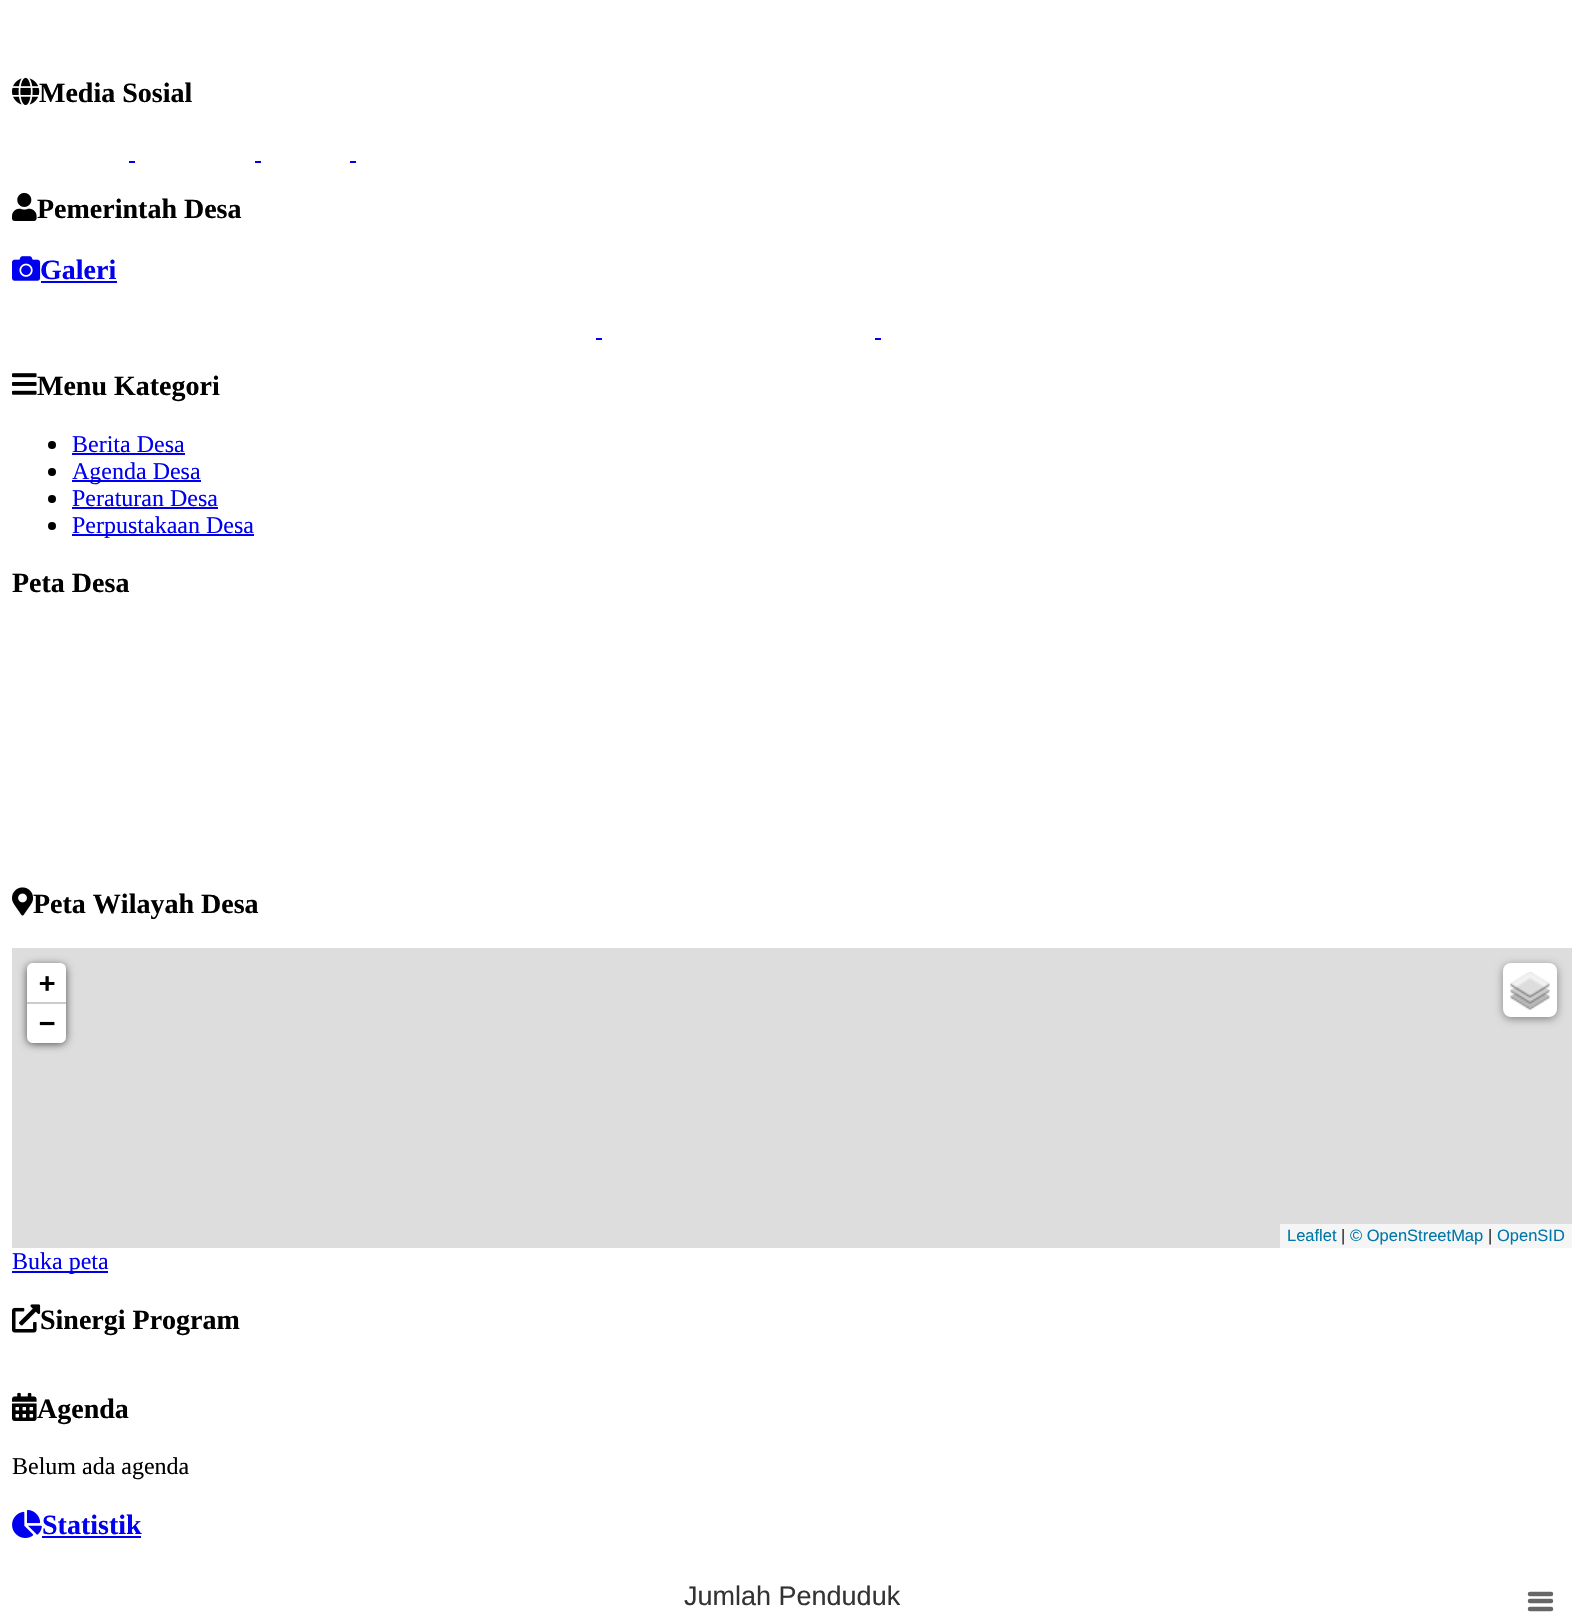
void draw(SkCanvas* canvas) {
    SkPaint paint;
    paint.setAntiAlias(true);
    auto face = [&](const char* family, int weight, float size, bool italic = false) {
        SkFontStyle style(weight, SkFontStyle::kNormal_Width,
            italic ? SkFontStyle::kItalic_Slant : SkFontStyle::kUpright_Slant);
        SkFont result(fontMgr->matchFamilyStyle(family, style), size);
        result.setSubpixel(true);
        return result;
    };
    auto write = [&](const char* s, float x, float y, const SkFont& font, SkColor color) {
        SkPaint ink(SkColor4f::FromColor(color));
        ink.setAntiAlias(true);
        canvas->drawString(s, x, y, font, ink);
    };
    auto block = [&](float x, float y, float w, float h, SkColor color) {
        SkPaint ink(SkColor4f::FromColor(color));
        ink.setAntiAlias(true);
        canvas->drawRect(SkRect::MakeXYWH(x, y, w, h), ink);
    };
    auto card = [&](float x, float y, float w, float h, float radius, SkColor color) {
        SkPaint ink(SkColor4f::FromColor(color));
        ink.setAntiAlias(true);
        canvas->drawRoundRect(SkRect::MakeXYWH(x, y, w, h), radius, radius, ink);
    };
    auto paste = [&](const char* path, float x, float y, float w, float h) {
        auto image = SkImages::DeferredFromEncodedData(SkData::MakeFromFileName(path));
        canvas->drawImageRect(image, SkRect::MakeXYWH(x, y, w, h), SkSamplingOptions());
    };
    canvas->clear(SK_ColorWHITE);
    paste("pic1.png", 12, 77, 28, 29);
    auto kFont1 = face("Liberation Serif", 700, 28);
    write("Media Sosial", 39, 102, kFont1, SK_ColorBLACK);
    block(129, 161, 6, 2, SkColorSetRGB(0, 0, 238));
    block(255, 161, 6, 2, SkColorSetRGB(0, 0, 238));
    block(350, 161, 6, 2, SkColorSetRGB(0, 0, 238));
    paste("pic2.png", 12, 192, 25, 29);
    write("Pemerintah Desa", 37, 218, kFont1, SK_ColorBLACK);
    paste("pic3.png", 12, 256, 29, 25);
    write("Galeri", 40, 279, kFont1, SkColorSetRGB(0, 0, 238));
    block(41, 281, 76, 2, SkColorSetRGB(0, 0, 238));
    block(596, 338, 6, 2, SkColorSetRGB(0, 0, 238));
    block(875, 338, 6, 2, SkColorSetRGB(0, 0, 238));
    paste("pic4.png", 12, 373, 25, 22);
    write("Menu Kategori", 37, 395, kFont1, SK_ColorBLACK);
    paint.setColor(SK_ColorBLACK);
    canvas->drawCircle(52, 445, 4, paint);
    auto kFont2 = face("Liberation Serif", 400, 24);
    write("Berita Desa", 72, 452, kFont2, SkColorSetRGB(0, 0, 238));
    block(72, 453, 113, 2, SkColorSetRGB(0, 0, 238));
    canvas->drawCircle(52, 472, 4, paint);
    block(72, 480, 129, 2, SkColorSetRGB(0, 0, 238));
    write("Agenda Desa", 72, 479, kFont2, SkColorSetRGB(0, 0, 238));
    canvas->drawCircle(52, 499, 4, paint);
    write("Peraturan Desa", 72, 506, kFont2, SkColorSetRGB(0, 0, 238));
    block(72, 507, 146, 2, SkColorSetRGB(0, 0, 238));
    canvas->drawCircle(52, 526, 4, paint);
    block(72, 534, 182, 2, SkColorSetRGB(0, 0, 238));
    write("Perpustakaan Desa", 72, 533, kFont2, SkColorSetRGB(0, 0, 238));
    write("Peta Desa", 12, 592, kFont1, SK_ColorBLACK);
    paste("pic5.png", 12, 887, 22, 29);
    write("Peta Wilayah Desa", 33, 913, kFont1, SK_ColorBLACK);
    block(12, 948, 1560, 300, SkColorSetRGB(221, 221, 221));
    paint.setColor(SkColorSetARGB(166, 0, 0, 0));
    paint.setMaskFilter(SkMaskFilter::MakeBlur(kNormal_SkBlurStyle, 4));
    canvas->drawRoundRect(SkRect::MakeXYWH(27, 965, 39, 79), 6, 6, paint);
    paint.setMaskFilter(nullptr);
    paint.setColor(SK_ColorWHITE);
    canvas->drawPath(SkPathBuilder().moveTo(33, 963).lineTo(60, 963).cubicTo(63.5f, 963, 66, 965.5f, 66, 969).lineTo(66, 1004).lineTo(27, 1004).lineTo(27, 969).cubicTo(27, 965.5f, 29.5f, 963, 33, 963).close().detach(), paint);
    block(27, 1002, 39, 2, SkColorSetRGB(204, 204, 204));
    auto kFont3 = face("DejaVu Sans Mono", 700, 27);
    write("+", 39, 992, kFont3, SK_ColorBLACK);
    canvas->drawPath(SkPathBuilder().moveTo(27, 1004).lineTo(66, 1004).lineTo(66, 1037).cubicTo(66, 1040.5f, 63.5f, 1043, 60, 1043).lineTo(33, 1043).cubicTo(29.5f, 1043, 27, 1040.5f, 27, 1037).close().detach(), paint);
    write("−", 39, 1032, kFont3, SK_ColorBLACK);
    paint.setColor(SkColorSetARGB(102, 0, 0, 0));
    paint.setMaskFilter(SkMaskFilter::MakeBlur(kNormal_SkBlurStyle, 4));
    canvas->drawRoundRect(SkRect::MakeXYWH(1503, 965, 54, 54), 8, 8, paint);
    paint.setMaskFilter(nullptr);
    card(1503, 963, 54, 54, 8, SK_ColorWHITE);
    paste("pic6.png", 1510, 971, 40, 39);
    block(1280, 1224, 292, 24, SkColorSetRGB(245, 245, 245));
    auto kFont4 = face("Liberation Sans", 400, 16.5f);
    write("Leaflet", 1287, 1241, kFont4, SkColorSetRGB(0, 120, 168));
    write("|", 1341, 1241, kFont4, SkColorSetRGB(51, 51, 51));
    write("© OpenStreetMap", 1350, 1241, kFont4, SkColorSetRGB(0, 120, 168));
    write("|", 1488, 1241, kFont4, SkColorSetRGB(51, 51, 51));
    write("OpenSID", 1497, 1241, kFont4, SkColorSetRGB(0, 120, 168));
    block(12, 1271, 96, 2, SkColorSetRGB(0, 0, 238));
    write("Buka peta", 12, 1269, kFont2, SkColorSetRGB(0, 0, 238));
    paste("pic7.png", 12, 1304, 29, 29);
    write("Sinergi Program", 40, 1329, kFont1, SK_ColorBLACK);
    paste("pic8.png", 12, 1392, 25, 29);
    write("Agenda", 37, 1418, kFont1, SK_ColorBLACK);
    write("Belum ada agenda", 12, 1474, kFont2, SK_ColorBLACK);
    paste("pic9.png", 12, 1510, 30, 28);
    write("Statistik", 42, 1534, kFont1, SkColorSetRGB(0, 0, 238));
    block(42, 1536, 99, 2, SkColorSetRGB(0, 0, 238));
    auto kFont5 = face("Liberation Sans", 400, 27);
    write("Jumlah Penduduk", 684, 1605, kFont5, SkColorSetRGB(51, 51, 51));
    paint.setStyle(SkPaint::kStroke_Style);
    paint.setStrokeWidth(4.5f);
    paint.setStrokeCap(SkPaint::kRound_Cap);
    paint.setColor(SkColorSetRGB(102, 102, 102));
    canvas->drawPath(SkPathBuilder().moveTo(1530, 1594).lineTo(1551, 1594).moveTo(1530, 1601).lineTo(1551, 1601).moveTo(1530, 1609).lineTo(1551, 1609).detach(), paint);
}
